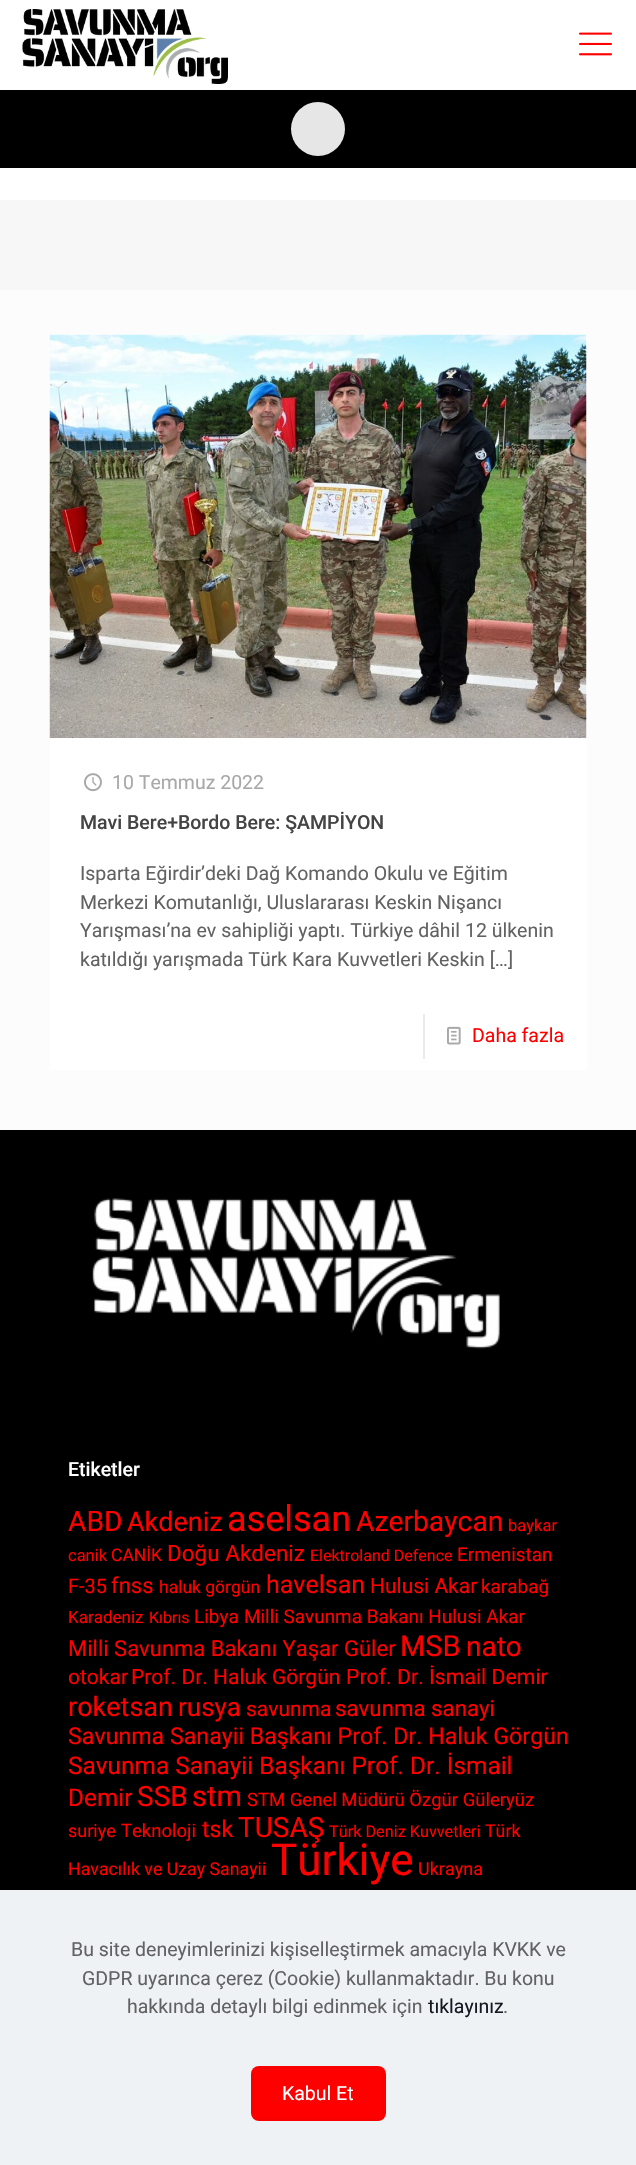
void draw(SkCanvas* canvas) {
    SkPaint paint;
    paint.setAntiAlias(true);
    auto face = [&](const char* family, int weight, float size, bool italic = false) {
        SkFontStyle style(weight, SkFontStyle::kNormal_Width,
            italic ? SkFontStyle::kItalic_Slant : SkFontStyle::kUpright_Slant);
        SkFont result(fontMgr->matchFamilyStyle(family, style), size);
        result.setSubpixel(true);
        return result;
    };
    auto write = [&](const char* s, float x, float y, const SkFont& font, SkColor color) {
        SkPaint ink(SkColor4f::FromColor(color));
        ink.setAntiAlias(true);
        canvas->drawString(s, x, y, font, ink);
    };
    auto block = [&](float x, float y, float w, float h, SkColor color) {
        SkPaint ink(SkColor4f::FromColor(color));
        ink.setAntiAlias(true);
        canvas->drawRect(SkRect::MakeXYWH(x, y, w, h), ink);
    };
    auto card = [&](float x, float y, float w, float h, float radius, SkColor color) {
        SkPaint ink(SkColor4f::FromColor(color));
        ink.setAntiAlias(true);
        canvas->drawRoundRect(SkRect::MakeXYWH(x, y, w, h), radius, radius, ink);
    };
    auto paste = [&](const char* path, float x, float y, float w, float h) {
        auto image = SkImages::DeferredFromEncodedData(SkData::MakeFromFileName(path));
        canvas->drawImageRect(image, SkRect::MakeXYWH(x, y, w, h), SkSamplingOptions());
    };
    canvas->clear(SkColorSetRGB(252, 252, 252));
    block(0, 0, 636, 200, SK_ColorWHITE);
    paste("pic1.png", 22, 9, 206, 75);
    paste("pic2.png", 579, 32, 33, 24);
    block(0, 90, 636, 78, SK_ColorBLACK);
    paint.setColor(SkColorSetRGB(230, 230, 230));
    canvas->drawCircle(318, 129, 27, paint);
    block(0, 200, 636, 90, SkColorSetRGB(247, 247, 247));
    block(50, 335, 537, 735, SK_ColorWHITE);
    paste("pic3.png", 49, 334, 538, 404);
    paste("pic4.png", 84, 773, 18, 19);
    auto kFont1 = face("Roboto", 400, 19.5f);
    write("10 Temmuz 2022", 112, 789, kFont1, SkColorSetRGB(168, 168, 168));
    auto kFont2 = face("Roboto", 500, 19.5f);
    write("Mavi Bere+Bordo Bere: ŞAMPİYON", 80, 829, kFont2, SkColorSetRGB(68, 68, 68));
    write("Isparta Eğirdir’deki Dağ Komando Okulu ve Eğitim", 80, 880, kFont1, SkColorSetRGB(98, 98, 98));
    write("Merkezi Komutanlığı, Uluslararası Keskin Nişancı", 80, 909, kFont1, SkColorSetRGB(98, 98, 98));
    write("Yarışması’na ev sahipliği yaptı. Türkiye dâhil 12 ülkenin", 80, 937, kFont1, SkColorSetRGB(98, 98, 98));
    write("katıldığı yarışmada Türk Kara Kuvvetleri Keskin […]", 80, 966, kFont1, SkColorSetRGB(98, 98, 98));
    block(423, 1014, 2, 45, SkColorSetRGB(235, 235, 235));
    paste("pic5.png", 447, 1026, 14, 19);
    write("Daha fazla", 472, 1042, kFont1, SkColorSetRGB(255, 0, 0));
    block(0, 1130, 636, 760, SK_ColorBLACK);
    paste("pic6.png", 92, 1198, 408, 151);
    write("Etiketler", 68, 1476, kFont2, SK_ColorWHITE);
    auto kFont3 = face("Roboto", 400, 28.25f);
    write("ABD", 68, 1531, kFont3, SkColorSetRGB(255, 0, 0));
    auto kFont4 = face("Roboto", 400, 27);
    write("Akdeniz", 127, 1531, kFont4, SkColorSetRGB(255, 0, 0));
    auto kFont5 = face("Roboto", 400, 36);
    write("aselsan", 227, 1531, kFont5, SkColorSetRGB(255, 0, 0));
    write("Azerbaycan", 356, 1531, kFont3, SkColorSetRGB(255, 0, 0));
    auto kFont6 = face("Roboto", 400, 16.5f);
    write("baykar", 508, 1531, kFont6, SkColorSetRGB(255, 0, 0));
    write("canik", 68, 1561, kFont6, SkColorSetRGB(255, 0, 0));
    auto kFont7 = face("Roboto", 400, 17.5f);
    write("CANİK", 111, 1561, kFont7, SkColorSetRGB(255, 0, 0));
    auto kFont8 = face("Roboto", 400, 22.5f);
    write("Doğu Akdeniz", 167, 1561, kFont8, SkColorSetRGB(255, 0, 0));
    auto kFont9 = face("Roboto", 400, 16);
    write("Elektroland Defence", 310, 1561, kFont9, SkColorSetRGB(255, 0, 0));
    auto kFont10 = face("Roboto", 400, 18.9f);
    write("Ermenistan", 457, 1561, kFont10, SkColorSetRGB(255, 0, 0));
    auto kFont11 = face("Roboto", 400, 20);
    write("F-35", 68, 1593, kFont11, SkColorSetRGB(255, 0, 0));
    auto kFont12 = face("Roboto", 400, 22);
    write("fnss", 111, 1593, kFont12, SkColorSetRGB(255, 0, 0));
    write("haluk görgün", 159, 1593, kFont7, SkColorSetRGB(255, 0, 0));
    auto kFont13 = face("Roboto", 400, 25);
    write("havelsan", 266, 1593, kFont13, SkColorSetRGB(255, 0, 0));
    auto kFont14 = face("Roboto", 400, 21);
    write("Hulusi Akar", 370, 1593, kFont14, SkColorSetRGB(255, 0, 0));
    write("karabağ", 481, 1593, kFont10, SkColorSetRGB(255, 0, 0));
    auto kFont15 = face("Roboto", 400, 17);
    write("Karadeniz", 68, 1623, kFont15, SkColorSetRGB(255, 0, 0));
    write("Kıbrıs", 149, 1623, kFont9, SkColorSetRGB(255, 0, 0));
    auto kFont16 = face("Roboto", 400, 19);
    write("Libya", 194, 1623, kFont16, SkColorSetRGB(255, 0, 0));
    write("Milli Savunma Bakanı Hulusi Akar", 244, 1623, kFont10, SkColorSetRGB(255, 0, 0));
    write("Milli Savunma Bakanı Yaşar Güler", 68, 1656, kFont12, SkColorSetRGB(255, 0, 0));
    auto kFont17 = face("Roboto", 400, 29);
    write("MSB", 400, 1656, kFont17, SkColorSetRGB(255, 0, 0));
    auto kFont18 = face("Roboto", 400, 28);
    write("nato", 466, 1656, kFont18, SkColorSetRGB(255, 0, 0));
    write("otokar", 68, 1684, kFont14, SkColorSetRGB(255, 0, 0));
    write("Prof. Dr. Haluk Görgün", 131, 1684, kFont14, SkColorSetRGB(255, 0, 0));
    auto kFont19 = face("Roboto", 400, 21.25f);
    write("Prof. Dr. İsmail Demir", 346, 1684, kFont19, SkColorSetRGB(255, 0, 0));
    write("roketsan", 68, 1716, kFont4, SkColorSetRGB(255, 0, 0));
    auto kFont20 = face("Roboto", 400, 26);
    write("rusya", 178, 1716, kFont20, SkColorSetRGB(255, 0, 0));
    write("savunma", 246, 1716, kFont14, SkColorSetRGB(255, 0, 0));
    auto kFont21 = face("Roboto", 400, 22.25f);
    write("savunma sanayi", 335, 1716, kFont21, SkColorSetRGB(255, 0, 0));
    auto kFont22 = face("Roboto", 400, 23.2f);
    write("Savunma Sanayii Başkanı Prof. Dr. Haluk Görgün", 68, 1744, kFont22, SkColorSetRGB(255, 0, 0));
    auto kFont23 = face("Roboto", 400, 24.4f);
    write("Savunma Sanayii Başkanı Prof. Dr. İsmail", 68, 1774, kFont23, SkColorSetRGB(255, 0, 0));
    write("Demir", 68, 1806, kFont23, SkColorSetRGB(255, 0, 0));
    write("SSB", 137, 1806, kFont18, SkColorSetRGB(255, 0, 0));
    write("stm", 192, 1806, kFont17, SkColorSetRGB(255, 0, 0));
    auto kFont24 = face("Roboto", 400, 18.5f);
    write("STM Genel Müdürü Özgür Güleryüz", 247, 1806, kFont24, SkColorSetRGB(255, 0, 0));
    auto kFont25 = face("Roboto", 400, 18);
    write("suriye", 68, 1837, kFont25, SkColorSetRGB(255, 0, 0));
    write("Teknoloji", 121, 1837, kFont24, SkColorSetRGB(255, 0, 0));
    write("tsk", 202, 1837, kFont22, SkColorSetRGB(255, 0, 0));
    write("TUSAŞ", 238, 1837, kFont18, SkColorSetRGB(255, 0, 0));
    auto kFont26 = face("Roboto", 400, 16.25f);
    write("Türk Deniz Kuvvetleri", 329, 1837, kFont26, SkColorSetRGB(255, 0, 0));
    auto kFont27 = face("Roboto", 400, 17.75f);
    write("Türk", 485, 1837, kFont27, SkColorSetRGB(255, 0, 0));
    write("Havacılık ve Uzay Sanayii", 68, 1875, kFont27, SkColorSetRGB(255, 0, 0));
    auto kFont28 = face("Roboto", 400, 44);
    write("Türkiye", 271, 1875, kFont28, SkColorSetRGB(255, 0, 0));
    write("Ukrayna", 418, 1875, kFont25, SkColorSetRGB(255, 0, 0));
    block(0, 1890, 636, 275, SkColorSetRGB(238, 242, 245));
    write("Bu site deneyimlerinizi kişiselleştirmek amacıyla KVKK ve", 71, 1956, kFont1, SkColorSetRGB(98, 98, 98));
    write("GDPR uyarınca çerez (Cookie) kullanmaktadır. Bu konu", 82, 1985, kFont1, SkColorSetRGB(98, 98, 98));
    write("hakkında detaylı bilgi edinmek için", 127, 2013, kFont1, SkColorSetRGB(98, 98, 98));
    write("tıklayınız", 428, 2013, kFont1, SkColorSetRGB(22, 25, 34));
    write(".", 503, 2013, kFont1, SkColorSetRGB(98, 98, 98));
    card(251, 2066, 135, 55, 8, SkColorSetRGB(255, 0, 0));
    paint.setStyle(SkPaint::kStroke_Style);
    paint.setStrokeWidth(2);
    paint.setColor(SkColorSetRGB(247, 0, 0));
    canvas->drawRoundRect(SkRect::MakeXYWH(253, 2068, 130, 51), 5, 5, paint);
    write("Kabul Et", 282, 2100, kFont1, SK_ColorWHITE);
}
